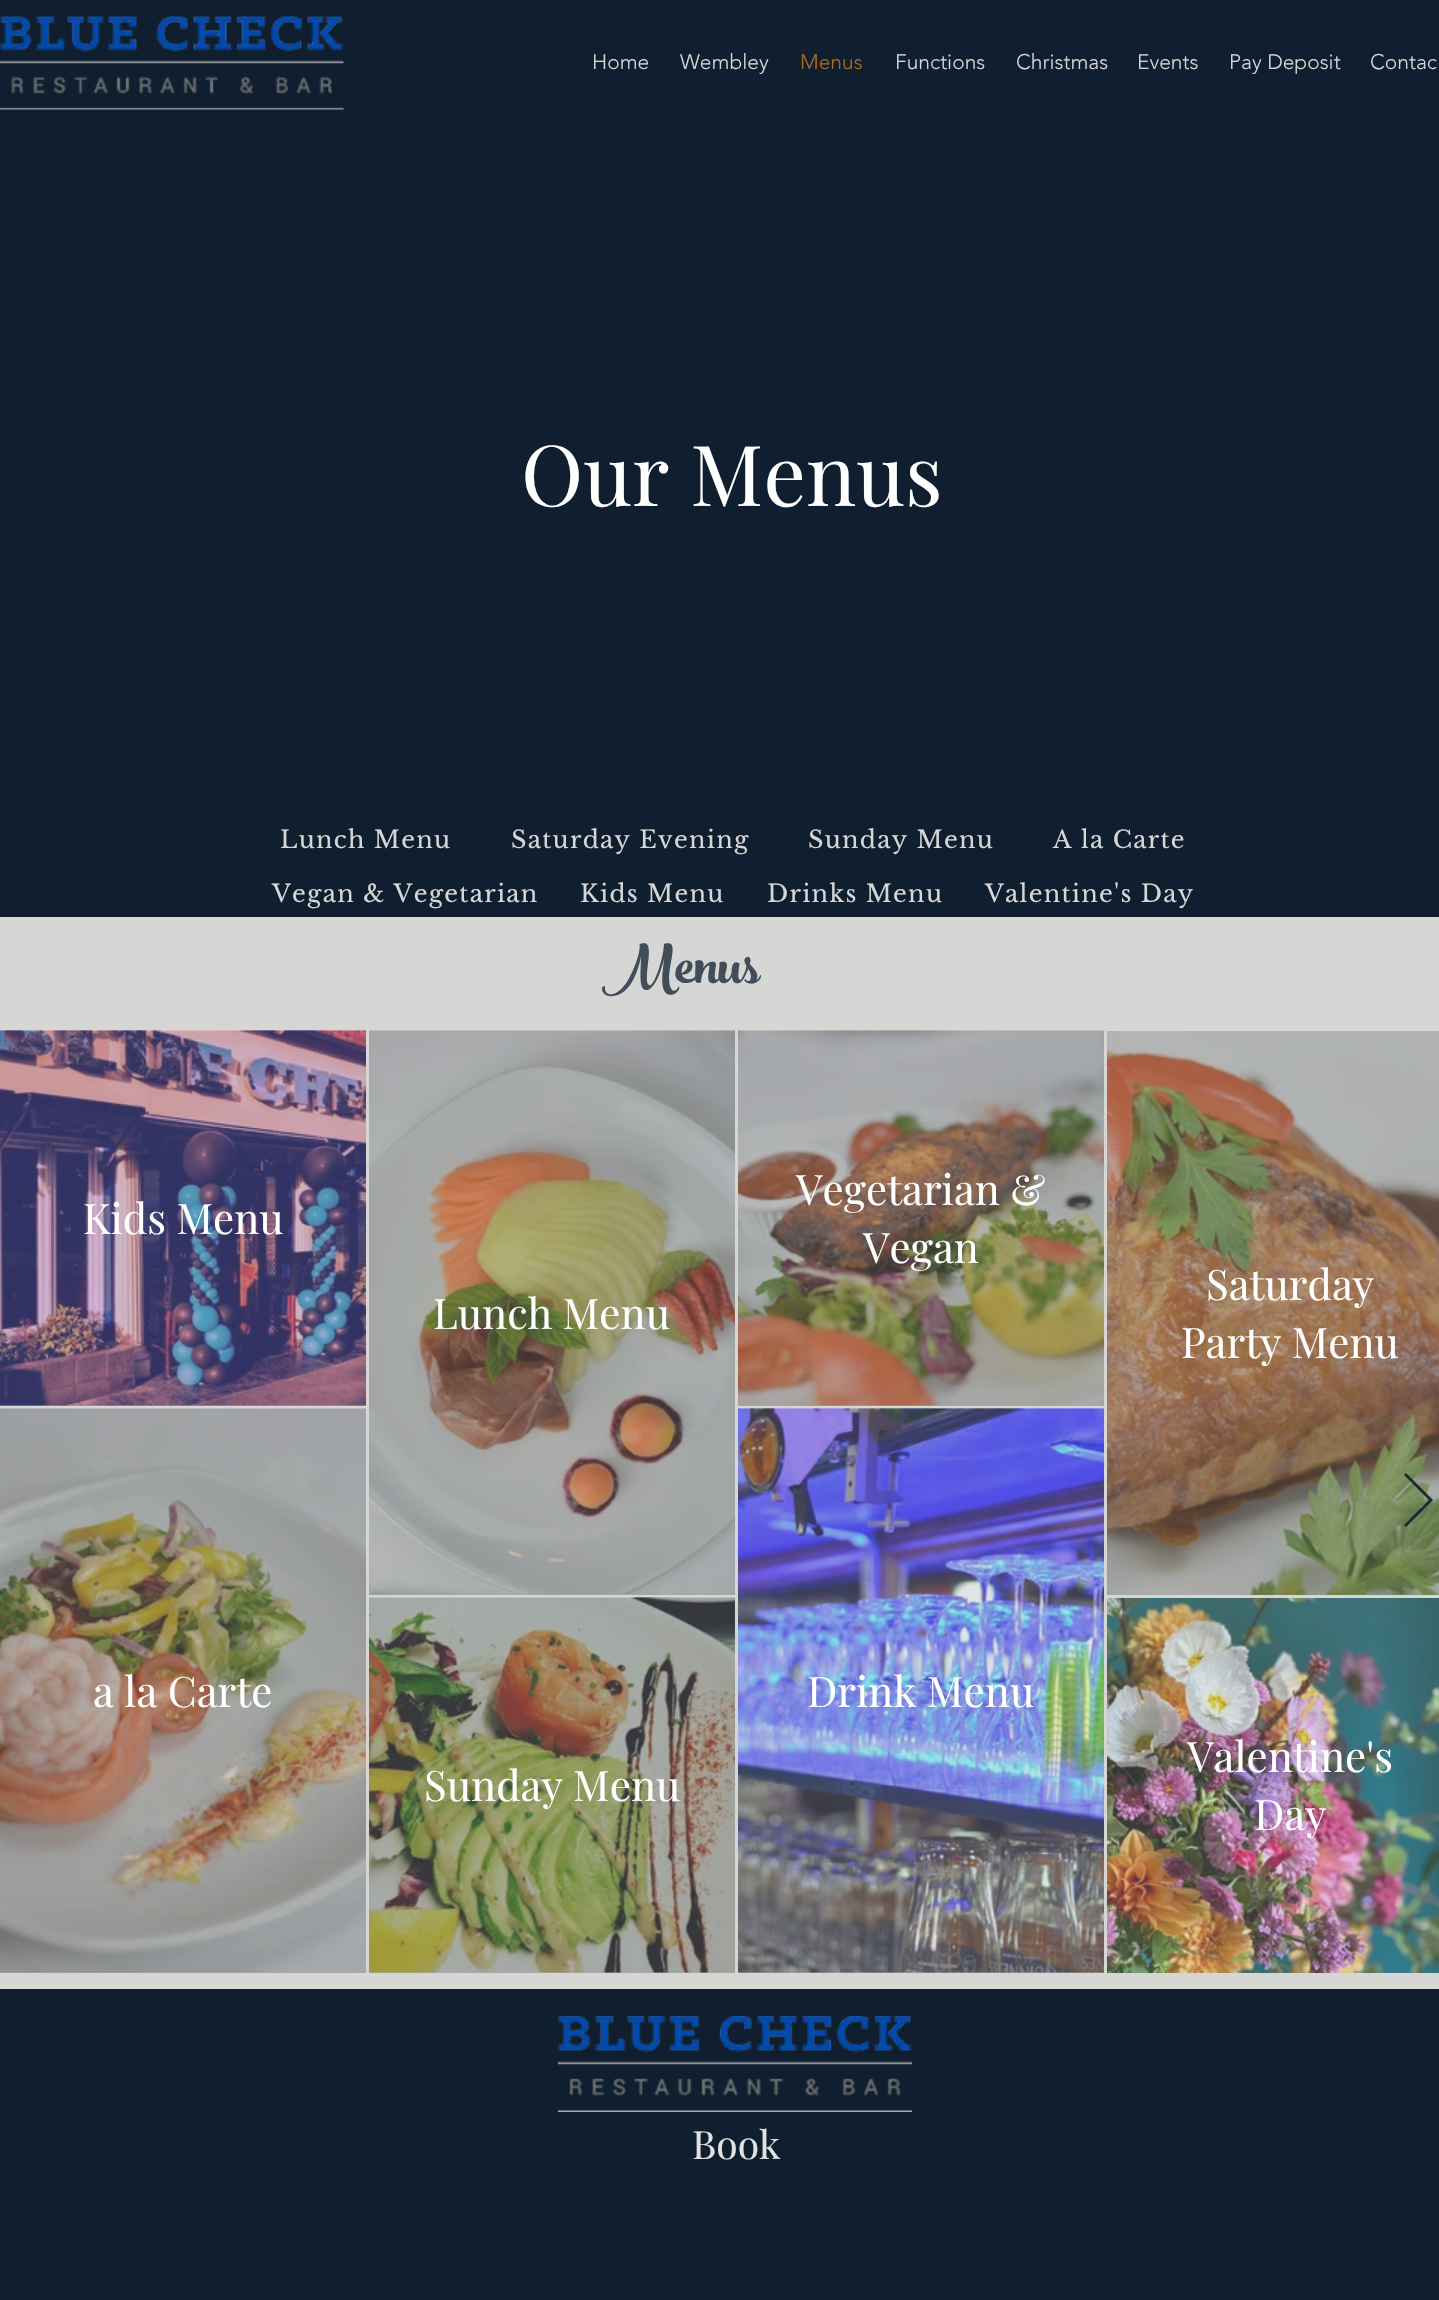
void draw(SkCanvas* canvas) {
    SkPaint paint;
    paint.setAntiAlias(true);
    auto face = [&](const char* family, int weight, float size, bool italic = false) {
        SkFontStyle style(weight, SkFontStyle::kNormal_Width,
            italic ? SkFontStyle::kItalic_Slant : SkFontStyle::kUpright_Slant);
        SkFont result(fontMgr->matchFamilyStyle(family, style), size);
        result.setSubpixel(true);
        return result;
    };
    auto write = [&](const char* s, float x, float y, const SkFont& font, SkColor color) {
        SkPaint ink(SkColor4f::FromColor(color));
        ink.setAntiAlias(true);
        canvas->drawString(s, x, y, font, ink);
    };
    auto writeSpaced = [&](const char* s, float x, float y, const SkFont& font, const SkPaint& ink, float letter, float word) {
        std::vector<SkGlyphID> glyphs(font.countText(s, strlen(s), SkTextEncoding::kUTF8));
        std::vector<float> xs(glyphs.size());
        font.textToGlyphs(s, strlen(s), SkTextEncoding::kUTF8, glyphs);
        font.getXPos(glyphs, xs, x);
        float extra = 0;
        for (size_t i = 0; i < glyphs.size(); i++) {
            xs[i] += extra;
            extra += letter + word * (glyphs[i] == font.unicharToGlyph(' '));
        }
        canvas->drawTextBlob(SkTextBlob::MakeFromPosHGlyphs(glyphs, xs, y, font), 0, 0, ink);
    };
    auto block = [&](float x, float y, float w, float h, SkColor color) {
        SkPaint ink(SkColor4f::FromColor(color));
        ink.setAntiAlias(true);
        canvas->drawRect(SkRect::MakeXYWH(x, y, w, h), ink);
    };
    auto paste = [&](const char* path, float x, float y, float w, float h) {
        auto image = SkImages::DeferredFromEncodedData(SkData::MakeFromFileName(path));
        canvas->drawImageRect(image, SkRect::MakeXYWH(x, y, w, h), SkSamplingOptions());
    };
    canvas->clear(SkColorSetRGB(15, 31, 47));
    paste("pic1.png", 0, 16, 344, 94);
    auto kFont1 = face("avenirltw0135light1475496", 300, 21);
    write("Home", 592, 69, kFont1, SkColorSetRGB(214, 214, 213));
    write("Wembley", 680, 69, kFont1, SkColorSetRGB(214, 214, 213));
    write("Menus", 800, 69, kFont1, SkColorSetRGB(167, 107, 32));
    write("Functions", 895, 69, kFont1, SkColorSetRGB(214, 214, 213));
    write("Christmas", 1016, 69, kFont1, SkColorSetRGB(214, 214, 213));
    write("Events", 1137, 69, kFont1, SkColorSetRGB(214, 214, 213));
    write("Pay Deposit", 1229, 69, kFont1, SkColorSetRGB(214, 214, 213));
    write("Contac", 1370, 69, kFont1, SkColorSetRGB(214, 214, 213));
    auto kFont2 = face("Playfair Display", 400, 84);
    write("Our Menus", 521, 506, kFont2, SK_ColorWHITE);
    auto kFont3 = face("Libre Baskerville", 400, 24);
    paint.setColor(SkColorSetRGB(214, 214, 213));
    writeSpaced("Lunch Menu", 280, 848, kFont3, paint, 1.25f, 0);
    writeSpaced("Saturday Evening", 511, 848, kFont3, paint, 1.25f, 0);
    writeSpaced("Sunday Menu", 808, 848, kFont3, paint, 1.25f, 0);
    writeSpaced("A la Carte", 1053, 848, kFont3, paint, 1.25f, 0);
    writeSpaced("Vegan & Vegetarian", 272, 902, kFont3, paint, 1.25f, 0);
    writeSpaced("Kids Menu", 580, 902, kFont3, paint, 1.25f, 0);
    writeSpaced("Drinks Menu", 767, 902, kFont3, paint, 1.25f, 0);
    writeSpaced("Valentine's Day", 985, 902, kFont3, paint, 1.25f, 0);
    block(0, 917, 1439, 1072, SkColorSetRGB(214, 214, 213));
    auto kFont4 = face("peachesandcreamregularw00", 400, 84);
    write("Menus", 602, 983, kFont4, SkColorSetRGB(65, 77, 89));
    block(0, 1405, 366, 1, SkColorSetRGB(164, 168, 172));
    paste("pic2.png", 0, 1030, 366, 376);
    auto kFont5 = face("Playfair Display", 400, 42);
    write("Kids Menu", 83, 1234, kFont5, SK_ColorWHITE);
    block(0, 1972, 366, 1, SkColorSetRGB(164, 168, 172));
    paste("pic3.png", 0, 1408, 366, 565);
    write("a la Carte", 93, 1707, kFont5, SK_ColorWHITE);
    block(369, 1594, 366, 1, SkColorSetRGB(164, 168, 172));
    paste("pic4.png", 369, 1030, 366, 565);
    write("Lunch Menu", 433, 1329, kFont5, SK_ColorWHITE);
    block(369, 1972, 366, 1, SkColorSetRGB(164, 168, 172));
    paste("pic5.png", 369, 1597, 366, 376);
    write("Sunday Menu", 424, 1801, kFont5, SK_ColorWHITE);
    block(738, 1405, 366, 1, SkColorSetRGB(164, 168, 172));
    paste("pic6.png", 738, 1030, 366, 376);
    write("Vegetarian &", 796, 1205, kFont5, SK_ColorWHITE);
    write("Vegan", 863, 1263, kFont5, SK_ColorWHITE);
    block(738, 1972, 366, 1, SkColorSetRGB(164, 168, 172));
    paste("pic7.png", 738, 1408, 366, 565);
    write("Drink Menu", 807, 1707, kFont5, SK_ColorWHITE);
    paste("pic8.png", 1107, 1031, 332, 564);
    write("Saturday", 1206, 1300, kFont5, SK_ColorWHITE);
    write("Party Menu", 1181, 1358, kFont5, SK_ColorWHITE);
    paste("pic9.png", 1107, 1598, 332, 375);
    write("Valentine's", 1187, 1772, kFont5, SK_ColorWHITE);
    write("Day", 1254, 1830, kFont5, SK_ColorWHITE);
    paint.setColor(SkColorSetARGB(230, 15, 31, 47));
    canvas->drawPath(SkPathBuilder().moveTo(1404, 1475).lineTo(1406, 1473).lineTo(1433, 1500).lineTo(1406, 1527).lineTo(1404, 1525).lineTo(1429, 1500).close().detach(), paint);
    paste("pic10.png", 558, 2016, 354, 96);
    auto kFont6 = face("Playfair Display", 400, 39);
    write("Book", 692, 2159, kFont6, SkColorSetRGB(226, 226, 226));
}
